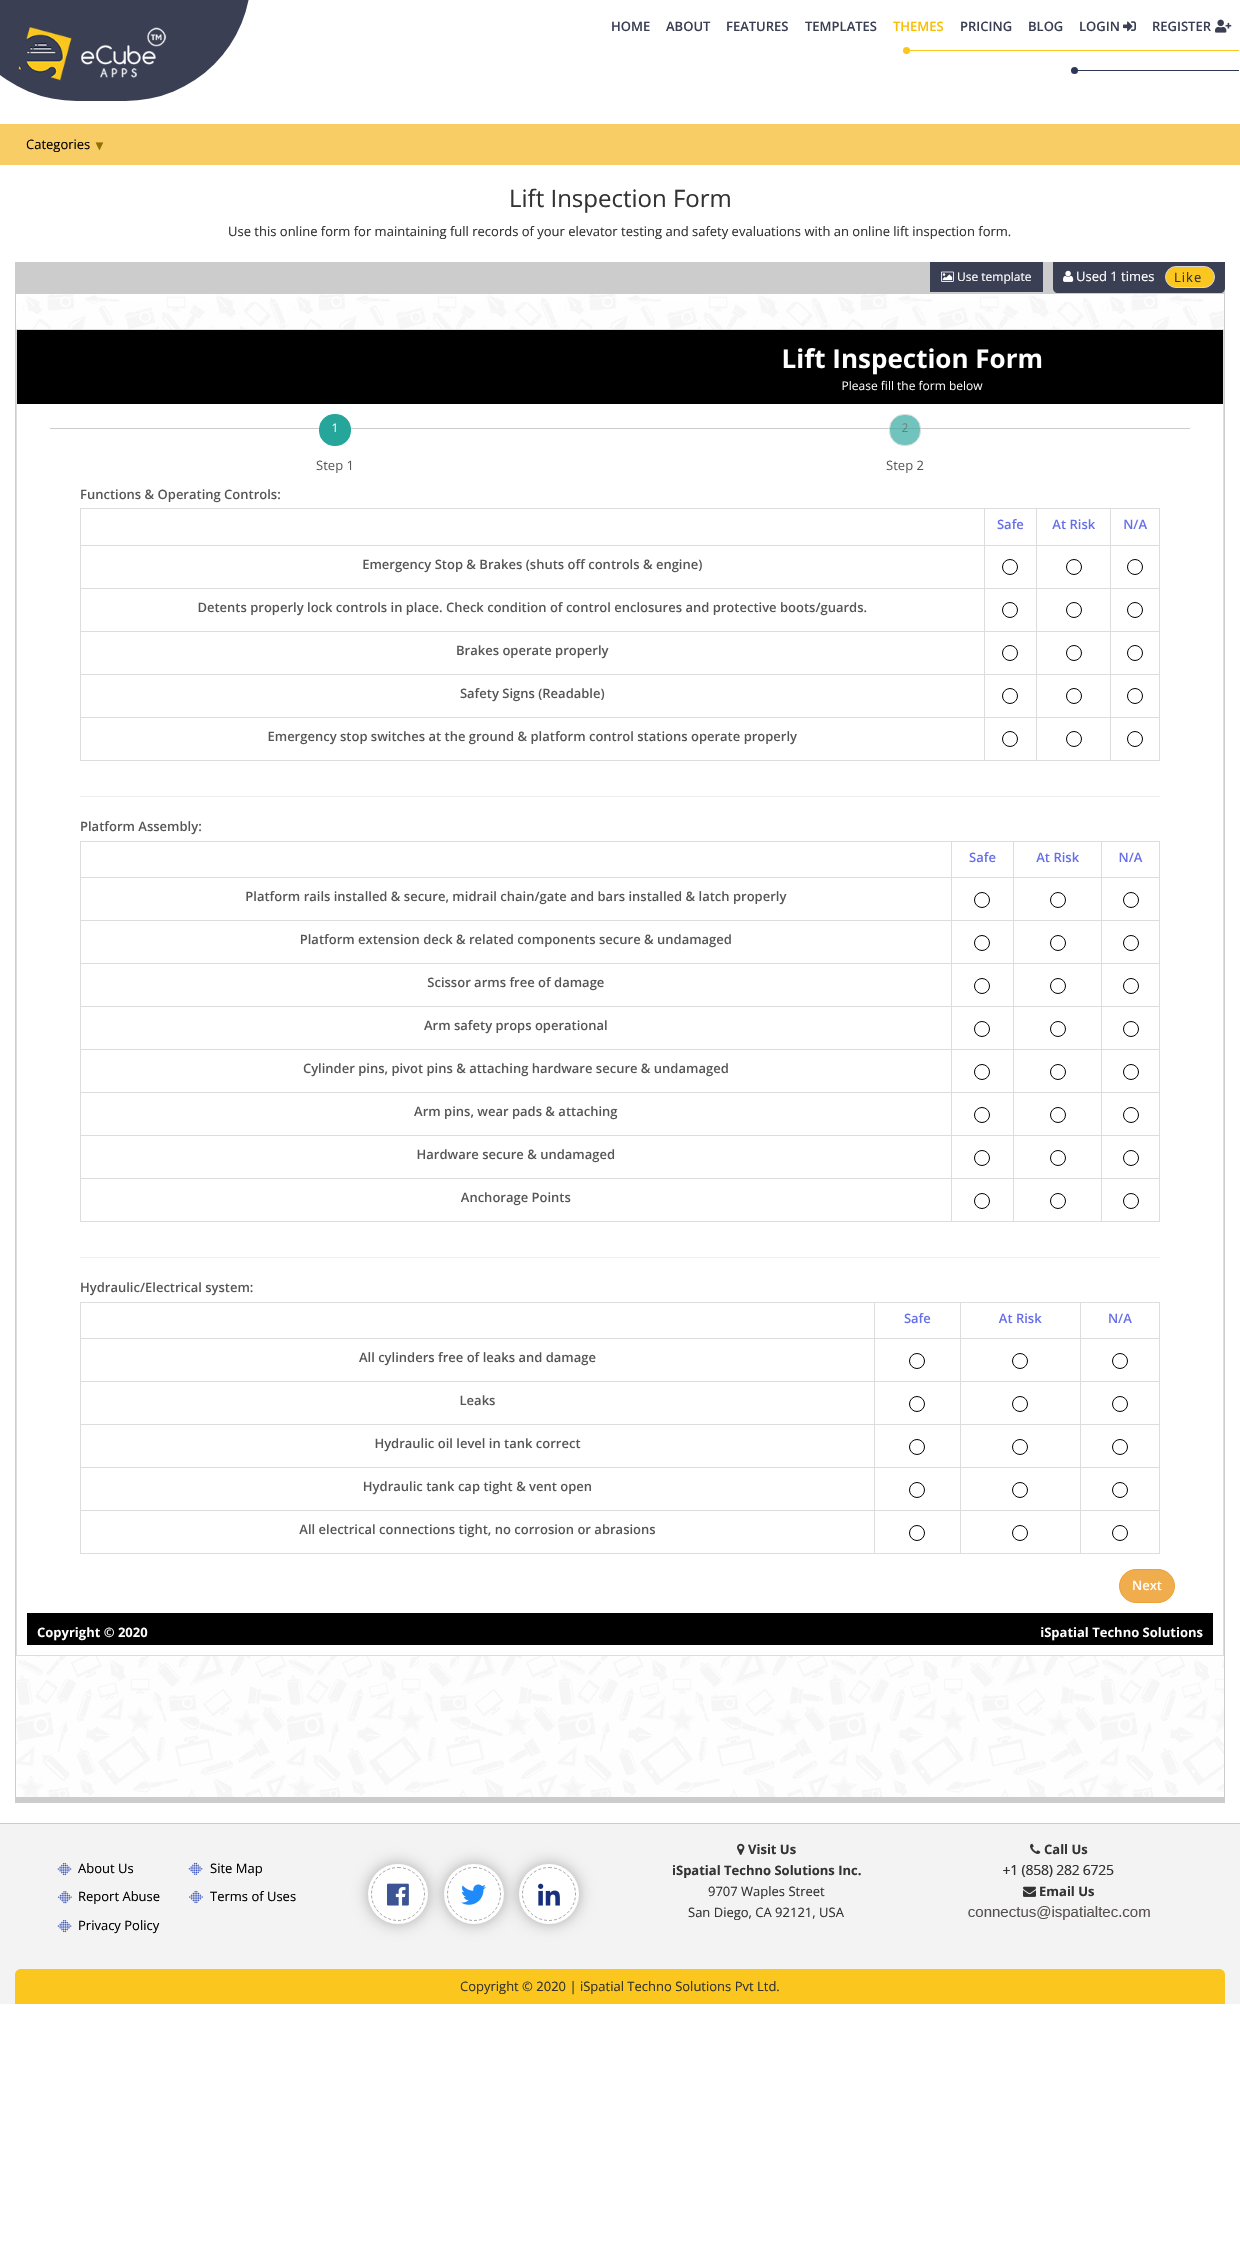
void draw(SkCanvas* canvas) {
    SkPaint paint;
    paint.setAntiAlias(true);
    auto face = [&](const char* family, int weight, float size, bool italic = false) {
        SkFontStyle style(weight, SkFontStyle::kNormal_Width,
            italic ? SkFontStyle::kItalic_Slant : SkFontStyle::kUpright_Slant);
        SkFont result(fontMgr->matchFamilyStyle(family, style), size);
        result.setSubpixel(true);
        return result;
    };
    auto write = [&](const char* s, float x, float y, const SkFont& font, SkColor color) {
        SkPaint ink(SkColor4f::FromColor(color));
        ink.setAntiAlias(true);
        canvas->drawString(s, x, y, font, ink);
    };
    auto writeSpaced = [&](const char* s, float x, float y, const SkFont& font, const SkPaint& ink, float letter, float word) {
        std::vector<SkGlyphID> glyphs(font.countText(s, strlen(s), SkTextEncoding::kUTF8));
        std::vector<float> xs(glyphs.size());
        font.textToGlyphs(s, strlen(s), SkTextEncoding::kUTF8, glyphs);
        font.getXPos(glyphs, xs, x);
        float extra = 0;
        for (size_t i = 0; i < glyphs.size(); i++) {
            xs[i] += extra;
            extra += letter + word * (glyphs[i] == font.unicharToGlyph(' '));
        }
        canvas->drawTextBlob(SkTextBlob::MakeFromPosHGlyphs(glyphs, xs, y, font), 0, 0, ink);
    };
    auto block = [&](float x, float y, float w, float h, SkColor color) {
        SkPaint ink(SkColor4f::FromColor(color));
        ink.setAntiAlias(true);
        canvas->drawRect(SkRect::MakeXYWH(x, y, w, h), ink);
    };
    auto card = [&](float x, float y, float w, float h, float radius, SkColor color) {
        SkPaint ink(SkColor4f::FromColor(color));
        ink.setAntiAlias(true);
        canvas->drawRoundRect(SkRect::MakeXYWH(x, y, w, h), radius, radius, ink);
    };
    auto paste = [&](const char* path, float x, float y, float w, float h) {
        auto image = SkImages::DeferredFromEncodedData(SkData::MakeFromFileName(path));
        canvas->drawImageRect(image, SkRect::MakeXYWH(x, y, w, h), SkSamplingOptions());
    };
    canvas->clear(SK_ColorWHITE);
    card(-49, -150, 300, 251, 150, SkColorSetRGB(58, 63, 83));
    auto kFont1 = face("Open Sans", 600, 13);
    write("HOME", 611, 31, kFont1, SkColorSetRGB(58, 63, 83));
    write("ABOUT", 666, 31, kFont1, SkColorSetRGB(58, 63, 83));
    write("FEATURES", 726, 31, kFont1, SkColorSetRGB(58, 63, 83));
    write("TEMPLATES", 805, 31, kFont1, SkColorSetRGB(58, 63, 83));
    write("THEMES", 893, 31, kFont1, SkColorSetRGB(249, 190, 3));
    write("PRICING", 960, 31, kFont1, SkColorSetRGB(58, 63, 83));
    write("BLOG", 1028, 31, kFont1, SkColorSetRGB(58, 63, 83));
    write("LOGIN", 1079, 31, kFont1, SkColorSetRGB(58, 63, 83));
    paste("pic1.png", 1123, 21, 13, 11);
    write("REGISTER", 1152, 31, kFont1, SkColorSetRGB(58, 63, 83));
    paste("pic2.png", 1215, 19, 17, 14);
    block(903, 50, 336, 1, SkColorSetRGB(251, 198, 30));
    paint.setColor(SkColorSetRGB(251, 198, 30));
    canvas->drawCircle(906.5f, 50.5f, 3.5f, paint);
    block(1071, 70, 168, 1, SkColorSetRGB(46, 54, 86));
    paint.setColor(SkColorSetRGB(46, 54, 86));
    canvas->drawCircle(1074.5f, 70.5f, 3.5f, paint);
    paste("pic3.png", 18, 27, 149, 54);
    block(0, 124, 1240, 41, SkColorSetRGB(248, 205, 101));
    auto kFont2 = face("Open Sans", 400, 13);
    write("Categories", 26, 149, kFont2, SK_ColorBLACK);
    auto kFont3 = face("Liberation Sans", 400, 13);
    write("▼", 93, 150, kFont3, SkColorSetRGB(145, 111, 3));
    auto kFont4 = face("Open Sans", 400, 24);
    write("Lift Inspection Form", 509, 207, kFont4, SkColorSetRGB(51, 51, 51));
    write("Use this online form for maintaining full records of your elevator testing and safety evaluations with an online lift inspection form.", 228, 236, kFont2, SkColorSetRGB(51, 51, 51));
    block(15, 262, 1210, 1541, SkColorSetRGB(204, 204, 204));
    block(930, 262, 113, 30, SkColorSetRGB(58, 63, 83));
    paste("pic4.png", 941, 271, 13, 11);
    auto kFont5 = face("Open Sans", 400, 12);
    write("Use template", 957, 281, kFont5, SK_ColorWHITE);
    paint.setColor(SkColorSetRGB(58, 63, 83));
    canvas->drawPath(SkPathBuilder().moveTo(1053, 262).lineTo(1225, 262).lineTo(1225, 288).cubicTo(1225, 291, 1223, 293, 1220, 293).lineTo(1058, 293).cubicTo(1055, 293, 1053, 291, 1053, 288).close().detach(), paint);
    paste("pic5.png", 1063, 270, 11, 12);
    write("Used 1 times", 1076, 281, kFont2, SK_ColorWHITE);
    paint.setColor(SkColorSetRGB(251, 198, 30));
    canvas->drawRoundRect(SkRect::MakeXYWH(1165.5f, 266.5f, 49, 21), 10.5f, 10.5f, paint);
    paint.setStyle(SkPaint::kStroke_Style);
    paint.setStrokeWidth(1);
    paint.setColor(SkColorSetRGB(216, 216, 216));
    canvas->drawRoundRect(SkRect::MakeXYWH(1165.5f, 266.5f, 49, 21), 10.5f, 10.5f, paint);
    paint.setStyle(SkPaint::kFill_Style);
    paint.setColor(SkColorSetRGB(51, 51, 51));
    writeSpaced("Like", 1174, 282, kFont2, paint, 1, 0);
    paste("pic6.png", 16, 294, 1208, 1503);
    block(0, 1824, 1240, 180, SkColorSetRGB(243, 243, 243));
    block(0, 1823, 1240, 1, SkColorSetRGB(204, 204, 204));
    paste("pic7.png", 57, 1862, 15, 14);
    write("About Us", 78, 1873, kFont2, SK_ColorBLACK);
    paste("pic8.png", 188, 1862, 15, 13);
    write("Site Map", 210, 1873, kFont2, SK_ColorBLACK);
    paste("pic9.png", 57, 1891, 15, 13);
    write("Report Abuse", 78, 1901, kFont2, SK_ColorBLACK);
    paste("pic10.png", 189, 1890, 14, 14);
    write("Terms of Uses", 210, 1901, kFont2, SK_ColorBLACK);
    paste("pic11.png", 57, 1920, 15, 13);
    write("Privacy Policy", 78, 1930, kFont2, SK_ColorBLACK);
    paint.setColor(SkColorSetARGB(77, 0, 0, 0));
    paint.setMaskFilter(SkMaskFilter::MakeBlur(kNormal_SkBlurStyle, 7.5f));
    canvas->drawRoundRect(SkRect::MakeXYWH(368, 1864, 60, 60), 30, 30, paint);
    paint.setMaskFilter(nullptr);
    paint.setColor(SK_ColorWHITE);
    canvas->drawCircle(398, 1894, 30, paint);
    paste("pic12.png", 387, 1883, 22, 23);
    paint.setStyle(SkPaint::kStroke_Style);
    paint.setColor(SkColorSetRGB(170, 170, 170));
    paint.setPathEffect(SkDashPathEffect::Make({{3, 2}}, 0));
    canvas->drawPath(SkPathBuilder().moveTo(398, 1867.5f).cubicTo(412.5f, 1867.5f, 424.5f, 1879.5f, 424.5f, 1894).cubicTo(424.5f, 1908.5f, 412.5f, 1920.5f, 398, 1920.5f).cubicTo(383.5f, 1920.5f, 371.5f, 1908.5f, 371.5f, 1894).cubicTo(371.5f, 1879.5f, 383.5f, 1867.5f, 398, 1867.5f).close().detach(), paint);
    paint.setPathEffect(nullptr);
    paint.setStyle(SkPaint::kFill_Style);
    paint.setColor(SkColorSetARGB(77, 0, 0, 0));
    paint.setMaskFilter(SkMaskFilter::MakeBlur(kNormal_SkBlurStyle, 7.5f));
    canvas->drawRoundRect(SkRect::MakeXYWH(444, 1864, 60, 60), 30, 30, paint);
    paint.setMaskFilter(nullptr);
    paint.setColor(SK_ColorWHITE);
    canvas->drawCircle(474, 1894, 30, paint);
    paste("pic13.png", 461, 1884, 25, 21);
    paint.setStyle(SkPaint::kStroke_Style);
    paint.setColor(SkColorSetRGB(170, 170, 170));
    paint.setPathEffect(SkDashPathEffect::Make({{3, 2}}, 0));
    canvas->drawPath(SkPathBuilder().moveTo(474, 1867.5f).cubicTo(488.5f, 1867.5f, 500.5f, 1879.5f, 500.5f, 1894).cubicTo(500.5f, 1908.5f, 488.5f, 1920.5f, 474, 1920.5f).cubicTo(459.5f, 1920.5f, 447.5f, 1908.5f, 447.5f, 1894).cubicTo(447.5f, 1879.5f, 459.5f, 1867.5f, 474, 1867.5f).close().detach(), paint);
    paint.setPathEffect(nullptr);
    paint.setStyle(SkPaint::kFill_Style);
    paint.setColor(SkColorSetARGB(77, 0, 0, 0));
    paint.setMaskFilter(SkMaskFilter::MakeBlur(kNormal_SkBlurStyle, 7.5f));
    canvas->drawRoundRect(SkRect::MakeXYWH(519, 1864, 60, 60), 30, 30, paint);
    paint.setMaskFilter(nullptr);
    paint.setColor(SK_ColorWHITE);
    canvas->drawCircle(549, 1894, 30, paint);
    paste("pic14.png", 538, 1883, 22, 23);
    paint.setStyle(SkPaint::kStroke_Style);
    paint.setColor(SkColorSetRGB(170, 170, 170));
    paint.setPathEffect(SkDashPathEffect::Make({{3, 2}}, 0));
    canvas->drawPath(SkPathBuilder().moveTo(549, 1867.5f).cubicTo(563.5f, 1867.5f, 575.5f, 1879.5f, 575.5f, 1894).cubicTo(575.5f, 1908.5f, 563.5f, 1920.5f, 549, 1920.5f).cubicTo(534.5f, 1920.5f, 522.5f, 1908.5f, 522.5f, 1894).cubicTo(522.5f, 1879.5f, 534.5f, 1867.5f, 549, 1867.5f).close().detach(), paint);
    paint.setPathEffect(nullptr);
    paste("pic15.png", 737, 1843, 8, 12);
    auto kFont6 = face("Open Sans", 700, 13);
    write("Visit Us", 748, 1854, kFont6, SkColorSetRGB(51, 51, 51));
    write("iSpatial Techno Solutions Inc.", 672, 1875, kFont6, SkColorSetRGB(51, 51, 51));
    write("9707 Waples Street", 708, 1896, kFont2, SkColorSetRGB(51, 51, 51));
    write("San Diego, CA 92121, USA", 688, 1917, kFont2, SkColorSetRGB(51, 51, 51));
    paste("pic16.png", 1030, 1843, 11, 11);
    write("Call Us", 1044, 1854, kFont6, SkColorSetRGB(51, 51, 51));
    paste("pic17.png", 1003, 1865, 111, 12);
    paste("pic18.png", 1023, 1886, 13, 11);
    write("Email Us", 1039, 1896, kFont6, SkColorSetRGB(51, 51, 51));
    paste("pic19.png", 968, 1906, 182, 14);
    paint.setStyle(SkPaint::kFill_Style);
    paint.setColor(SkColorSetRGB(251, 198, 30));
    canvas->drawPath(SkPathBuilder().moveTo(21, 1969).lineTo(1219, 1969).cubicTo(1222.5f, 1969, 1225, 1971.5f, 1225, 1975).lineTo(1225, 2004).lineTo(15, 2004).lineTo(15, 1975).cubicTo(15, 1971.5f, 17.5f, 1969, 21, 1969).close().detach(), paint);
    write("Copyright © 2020 | iSpatial Techno Solutions Pvt Ltd.", 460, 1991, kFont2, SkColorSetRGB(51, 51, 51));
}
